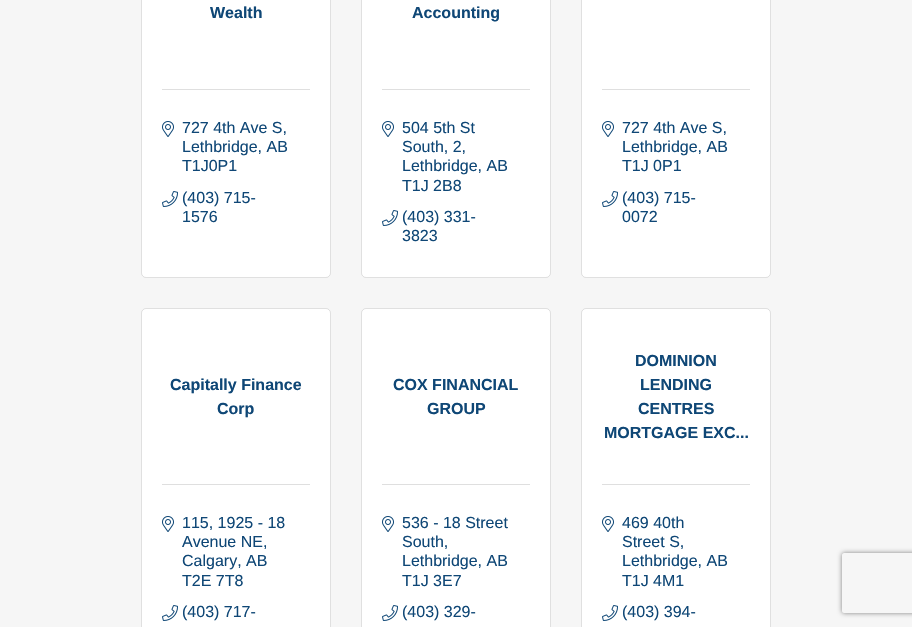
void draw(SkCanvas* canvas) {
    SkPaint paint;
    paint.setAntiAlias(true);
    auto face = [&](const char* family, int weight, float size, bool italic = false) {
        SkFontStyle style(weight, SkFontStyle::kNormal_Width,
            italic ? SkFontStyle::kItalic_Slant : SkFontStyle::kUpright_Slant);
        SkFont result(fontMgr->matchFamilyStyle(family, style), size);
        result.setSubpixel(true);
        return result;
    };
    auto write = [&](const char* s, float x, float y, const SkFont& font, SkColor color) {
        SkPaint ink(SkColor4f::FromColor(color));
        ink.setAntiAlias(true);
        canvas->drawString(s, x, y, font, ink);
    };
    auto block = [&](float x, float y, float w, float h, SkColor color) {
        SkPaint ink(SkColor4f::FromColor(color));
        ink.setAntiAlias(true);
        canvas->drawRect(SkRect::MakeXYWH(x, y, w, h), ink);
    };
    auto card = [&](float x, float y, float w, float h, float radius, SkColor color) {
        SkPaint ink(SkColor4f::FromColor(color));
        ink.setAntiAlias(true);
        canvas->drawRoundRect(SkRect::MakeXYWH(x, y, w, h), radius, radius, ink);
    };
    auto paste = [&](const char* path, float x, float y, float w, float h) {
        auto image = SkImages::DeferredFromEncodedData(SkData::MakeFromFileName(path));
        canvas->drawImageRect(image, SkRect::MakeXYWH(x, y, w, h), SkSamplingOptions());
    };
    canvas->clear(SkColorSetRGB(246, 246, 246));
    card(141, -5, 190, 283, 5, SK_ColorWHITE);
    paint.setStyle(SkPaint::kStroke_Style);
    paint.setStrokeWidth(1);
    paint.setColor(SkColorSetARGB(31, 0, 0, 0));
    canvas->drawRoundRect(SkRect::MakeXYWH(141.5f, -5.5f, 189, 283), 4.5f, 4.5f, paint);
    auto kFont1 = face("Liberation Sans", 700, 16);
    write("Wealth", 210, 18, kFont1, SkColorSetRGB(15, 71, 118));
    block(162, 89, 148, 1, SkColorSetRGB(223, 223, 223));
    paste("pic1.png", 162, 121, 12, 16);
    auto kFont2 = face("Liberation Sans", 400, 16);
    write("727 4th Ave S,", 182, 133, kFont2, SkColorSetRGB(15, 71, 118));
    write("Lethbridge, AB", 182, 152, kFont2, SkColorSetRGB(15, 71, 118));
    write("T1J0P1", 182, 171, kFont2, SkColorSetRGB(15, 71, 118));
    paste("pic2.png", 162, 191, 16, 16);
    write("(403) 715-", 182, 203, kFont2, SkColorSetRGB(15, 71, 118));
    write("1576", 182, 222, kFont2, SkColorSetRGB(15, 71, 118));
    card(361, -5, 190, 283, 5, SK_ColorWHITE);
    canvas->drawRoundRect(SkRect::MakeXYWH(361.5f, -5.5f, 189, 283), 4.5f, 4.5f, paint);
    write("Accounting", 412, 18, kFont1, SkColorSetRGB(15, 71, 118));
    block(382, 89, 148, 1, SkColorSetRGB(223, 223, 223));
    paste("pic1.png", 382, 121, 12, 16);
    write("504 5th St", 402, 133, kFont2, SkColorSetRGB(15, 71, 118));
    write("South, 2,", 402, 152, kFont2, SkColorSetRGB(15, 71, 118));
    write("Lethbridge, AB", 402, 171, kFont2, SkColorSetRGB(15, 71, 118));
    write("T1J 2B8", 402, 191, kFont2, SkColorSetRGB(15, 71, 118));
    paste("pic2.png", 382, 210, 16, 16);
    write("(403) 331-", 402, 222, kFont2, SkColorSetRGB(15, 71, 118));
    write("3823", 402, 241, kFont2, SkColorSetRGB(15, 71, 118));
    card(581, -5, 190, 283, 5, SK_ColorWHITE);
    canvas->drawRoundRect(SkRect::MakeXYWH(581.5f, -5.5f, 189, 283), 4.5f, 4.5f, paint);
    block(602, 89, 148, 1, SkColorSetRGB(223, 223, 223));
    paste("pic1.png", 602, 121, 12, 16);
    write("727 4th Ave S,", 622, 133, kFont2, SkColorSetRGB(15, 71, 118));
    write("Lethbridge, AB", 622, 152, kFont2, SkColorSetRGB(15, 71, 118));
    write("T1J 0P1", 622, 171, kFont2, SkColorSetRGB(15, 71, 118));
    paste("pic2.png", 602, 191, 16, 16);
    write("(403) 715-", 622, 203, kFont2, SkColorSetRGB(15, 71, 118));
    write("0072", 622, 222, kFont2, SkColorSetRGB(15, 71, 118));
    card(141, 308, 190, 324, 5, SK_ColorWHITE);
    canvas->drawRoundRect(SkRect::MakeXYWH(141.5f, 308.5f, 189, 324), 4.5f, 4.5f, paint);
    write("Capitally Finance", 170, 390, kFont1, SkColorSetRGB(15, 71, 118));
    write("Corp", 217, 414, kFont1, SkColorSetRGB(15, 71, 118));
    block(162, 484, 148, 1, SkColorSetRGB(223, 223, 223));
    paste("pic1.png", 162, 516, 12, 16);
    write("115, 1925 - 18", 182, 528, kFont2, SkColorSetRGB(15, 71, 118));
    write("Avenue NE,", 182, 547, kFont2, SkColorSetRGB(15, 71, 118));
    write("Calgary, AB", 182, 566, kFont2, SkColorSetRGB(15, 71, 118));
    write("T2E 7T8", 182, 586, kFont2, SkColorSetRGB(15, 71, 118));
    paste("pic2.png", 162, 605, 16, 16);
    write("(403) 717-", 182, 617, kFont2, SkColorSetRGB(15, 71, 118));
    card(361, 308, 190, 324, 5, SK_ColorWHITE);
    canvas->drawRoundRect(SkRect::MakeXYWH(361.5f, 308.5f, 189, 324), 4.5f, 4.5f, paint);
    write("COX FINANCIAL", 393, 390, kFont1, SkColorSetRGB(15, 71, 118));
    write("GROUP", 427, 414, kFont1, SkColorSetRGB(15, 71, 118));
    block(382, 484, 148, 1, SkColorSetRGB(223, 223, 223));
    paste("pic1.png", 382, 516, 12, 16);
    write("536 - 18 Street", 402, 528, kFont2, SkColorSetRGB(15, 71, 118));
    write("South,", 402, 547, kFont2, SkColorSetRGB(15, 71, 118));
    write("Lethbridge, AB", 402, 566, kFont2, SkColorSetRGB(15, 71, 118));
    write("T1J 3E7", 402, 586, kFont2, SkColorSetRGB(15, 71, 118));
    paste("pic2.png", 382, 605, 16, 16);
    write("(403) 329-", 402, 617, kFont2, SkColorSetRGB(15, 71, 118));
    card(581, 308, 190, 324, 5, SK_ColorWHITE);
    canvas->drawRoundRect(SkRect::MakeXYWH(581.5f, 308.5f, 189, 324), 4.5f, 4.5f, paint);
    write("DOMINION", 635, 366, kFont1, SkColorSetRGB(15, 71, 118));
    write("LENDING", 640, 390, kFont1, SkColorSetRGB(15, 71, 118));
    write("CENTRES", 638, 414, kFont1, SkColorSetRGB(15, 71, 118));
    write("MORTGAGE EXC...", 604, 438, kFont1, SkColorSetRGB(15, 71, 118));
    block(602, 484, 148, 1, SkColorSetRGB(223, 223, 223));
    paste("pic1.png", 602, 516, 12, 16);
    write("469 40th", 622, 528, kFont2, SkColorSetRGB(15, 71, 118));
    write("Street S,", 622, 547, kFont2, SkColorSetRGB(15, 71, 118));
    write("Lethbridge, AB", 622, 566, kFont2, SkColorSetRGB(15, 71, 118));
    write("T1J 4M1", 622, 586, kFont2, SkColorSetRGB(15, 71, 118));
    paste("pic2.png", 602, 605, 16, 16);
    write("(403) 394-", 622, 617, kFont2, SkColorSetRGB(15, 71, 118));
    canvas->save();
    canvas->clipPath(SkPathBuilder(SkPathFillType::kEvenOdd).moveTo(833, 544).lineTo(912, 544).lineTo(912, 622).lineTo(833, 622).close().moveTo(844, 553).lineTo(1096, 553).cubicTo(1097, 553, 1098, 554, 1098, 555).lineTo(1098, 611).cubicTo(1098, 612, 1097, 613, 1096, 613).lineTo(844, 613).cubicTo(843, 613, 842, 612, 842, 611).lineTo(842, 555).cubicTo(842, 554, 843, 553, 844, 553).close().detach(), true);
    paint.setStyle(SkPaint::kFill_Style);
    paint.setColor(SkColorSetRGB(128, 128, 128));
    paint.setMaskFilter(SkMaskFilter::MakeBlur(kNormal_SkBlurStyle, 2.5f));
    canvas->drawRoundRect(SkRect::MakeXYWH(842, 553, 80, 60), 2, 2, paint);
    paint.setMaskFilter(nullptr);
    canvas->restore();
}
